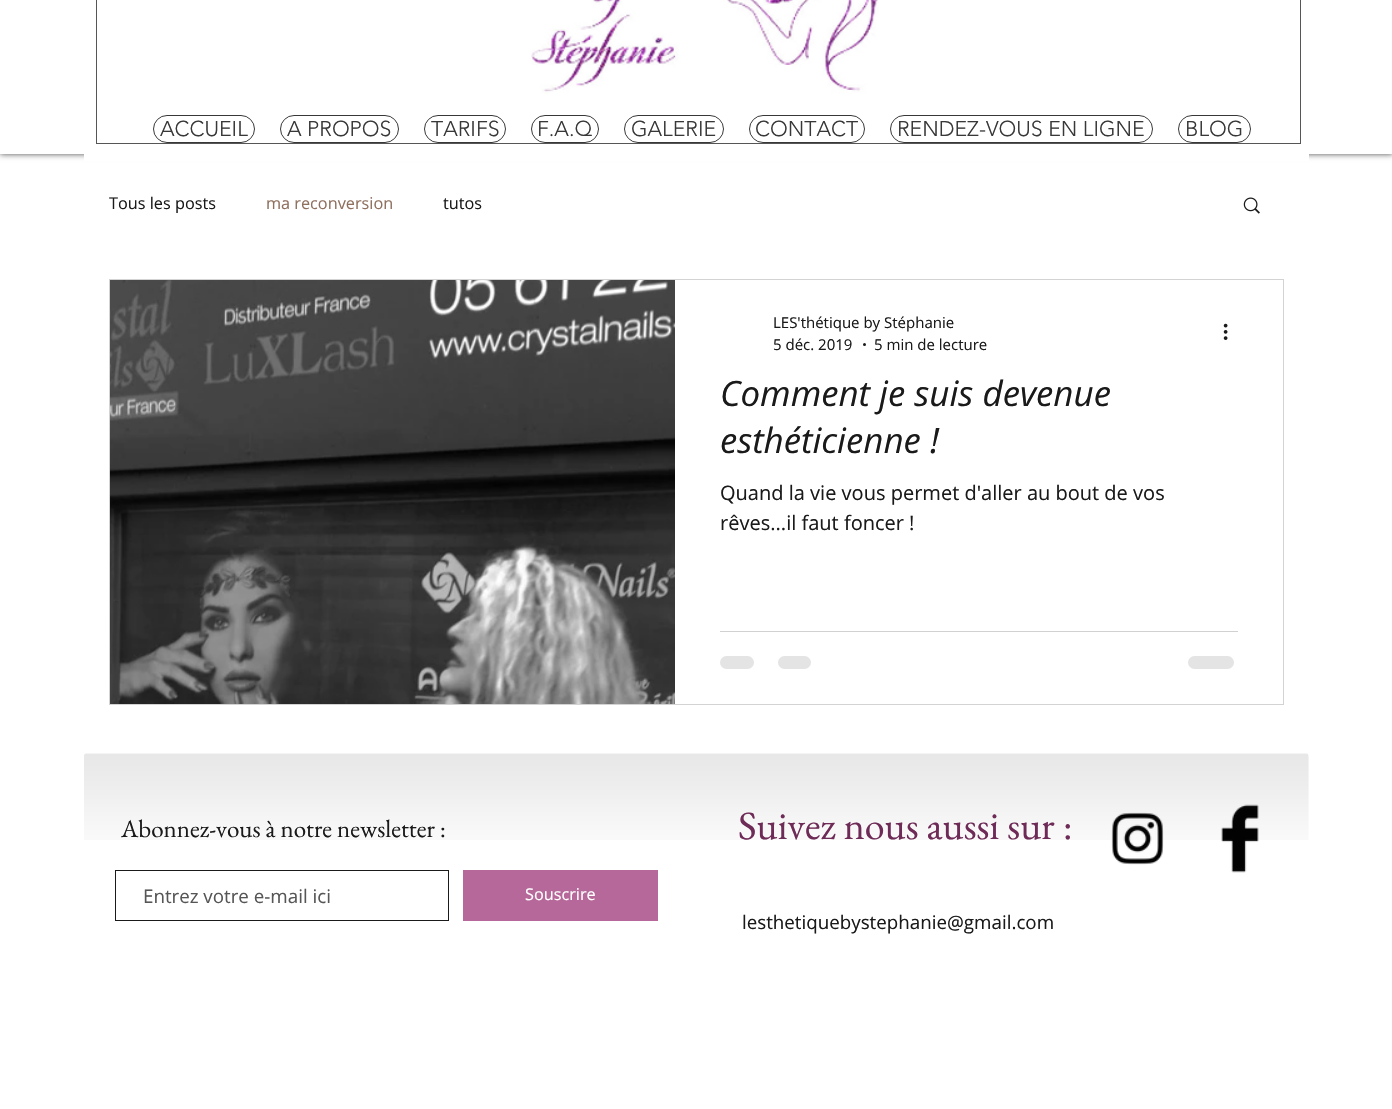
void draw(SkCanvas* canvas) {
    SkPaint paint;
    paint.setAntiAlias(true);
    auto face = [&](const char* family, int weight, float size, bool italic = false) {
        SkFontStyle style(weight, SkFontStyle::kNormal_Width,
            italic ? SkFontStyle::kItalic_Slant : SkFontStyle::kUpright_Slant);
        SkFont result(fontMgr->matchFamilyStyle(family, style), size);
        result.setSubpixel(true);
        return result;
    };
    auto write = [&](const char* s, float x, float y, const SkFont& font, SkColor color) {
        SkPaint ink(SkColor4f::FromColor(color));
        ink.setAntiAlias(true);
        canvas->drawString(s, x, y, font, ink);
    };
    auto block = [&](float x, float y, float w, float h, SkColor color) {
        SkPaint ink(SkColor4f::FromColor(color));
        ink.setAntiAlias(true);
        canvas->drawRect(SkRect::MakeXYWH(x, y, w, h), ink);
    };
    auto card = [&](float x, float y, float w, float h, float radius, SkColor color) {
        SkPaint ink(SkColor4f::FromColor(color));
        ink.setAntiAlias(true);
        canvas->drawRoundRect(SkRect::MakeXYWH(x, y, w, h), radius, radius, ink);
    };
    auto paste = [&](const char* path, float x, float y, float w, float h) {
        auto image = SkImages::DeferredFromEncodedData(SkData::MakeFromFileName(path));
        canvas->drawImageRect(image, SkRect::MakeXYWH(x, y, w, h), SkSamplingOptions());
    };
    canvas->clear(SK_ColorWHITE);
    paint.setColor(SkColorSetARGB(179, 0, 0, 0));
    paint.setMaskFilter(SkMaskFilter::MakeBlur(kNormal_SkBlurStyle, 3));
    canvas->drawRect(SkRect::MakeXYWH(0, -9, 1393, 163), paint);
    paint.setMaskFilter(nullptr);
    block(0, 0, 1392, 154, SK_ColorWHITE);
    paint.setStyle(SkPaint::kStroke_Style);
    paint.setStrokeWidth(1);
    paint.setColor(SkColorSetRGB(86, 86, 86));
    canvas->drawRect(SkRect::MakeXYWH(96.5f, -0.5f, 1204, 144), paint);
    paste("pic1.png", 531, 0, 348, 94);
    paint.setColor(SkColorSetRGB(56, 56, 56));
    canvas->drawRoundRect(SkRect::MakeXYWH(153.5f, 115.5f, 101, 27), 13.5f, 13.5f, paint);
    auto kFont1 = face("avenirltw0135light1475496", 300, 21.25f);
    write("ACCUEIL", 160, 136, kFont1, SkColorSetRGB(56, 56, 56));
    canvas->drawRoundRect(SkRect::MakeXYWH(280.5f, 115.5f, 118, 27), 13.5f, 13.5f, paint);
    write("A PROPOS", 287, 136, kFont1, SkColorSetRGB(56, 56, 56));
    canvas->drawRoundRect(SkRect::MakeXYWH(424.5f, 115.5f, 81, 27), 13.5f, 13.5f, paint);
    write("TARIFS", 431, 136, kFont1, SkColorSetRGB(56, 56, 56));
    canvas->drawRoundRect(SkRect::MakeXYWH(531.5f, 115.5f, 67, 27), 13.5f, 13.5f, paint);
    write("F.A.Q", 537, 136, kFont1, SkColorSetRGB(56, 56, 56));
    canvas->drawRoundRect(SkRect::MakeXYWH(624.5f, 115.5f, 99, 27), 13.5f, 13.5f, paint);
    write("GALERIE", 631, 136, kFont1, SkColorSetRGB(56, 56, 56));
    canvas->drawRoundRect(SkRect::MakeXYWH(749.5f, 115.5f, 115, 27), 13.5f, 13.5f, paint);
    write("CONTACT", 755, 136, kFont1, SkColorSetRGB(56, 56, 56));
    canvas->drawRoundRect(SkRect::MakeXYWH(890.5f, 115.5f, 262, 27), 13.5f, 13.5f, paint);
    write("RENDEZ-VOUS EN LIGNE", 897, 136, kFont1, SkColorSetRGB(56, 56, 56));
    canvas->drawRoundRect(SkRect::MakeXYWH(1178.5f, 115.5f, 72, 27), 13.5f, 13.5f, paint);
    write("BLOG", 1185, 136, kFont1, SkColorSetRGB(56, 56, 56));
    block(84, 154, 1225, 7, SK_ColorWHITE);
    auto kFont2 = face("Open Sans", 400, 16.25f);
    write("Tous les posts", 109, 209, kFont2, SkColorSetRGB(26, 26, 26));
    write("ma reconversion", 266, 209, kFont2, SkColorSetRGB(143, 112, 94));
    write("tutos", 443, 209, kFont2, SkColorSetRGB(26, 26, 26));
    paste("pic2.png", 1243, 197, 17, 17);
    paint.setColor(SkColorSetRGB(212, 211, 211));
    canvas->drawRect(SkRect::MakeXYWH(109.5f, 279.5f, 1174, 425), paint);
    paste("pic3.png", 110, 280, 565, 424);
    auto kFont3 = face("Open Sans", 400, 15);
    write("LES'thétique by Stéphanie", 773, 328, kFont3, SkColorSetRGB(26, 26, 26));
    write("5 déc. 2019", 773, 350, kFont3, SkColorSetRGB(26, 26, 26));
    paint.setStyle(SkPaint::kFill_Style);
    paint.setColor(SkColorSetRGB(26, 26, 26));
    canvas->drawCircle(864.5f, 344.5f, 1.5f, paint);
    write("5 min de lecture", 874, 350, kFont3, SkColorSetRGB(26, 26, 26));
    paste("pic4.png", 1223, 323, 5, 17);
    auto kFont4 = face("Open Sans", 400, 35, true);
    write("Comment je suis devenue", 720, 406, kFont4, SkColorSetRGB(26, 26, 26));
    write("esthéticienne !", 720, 453, kFont4, SkColorSetRGB(26, 26, 26));
    auto kFont5 = face("Open Sans", 400, 20);
    write("Quand la vie vous permet d'aller au bout de vos", 720, 500, kFont5, SkColorSetRGB(26, 26, 26));
    write("rêves...il faut foncer !", 720, 530, kFont5, SkColorSetRGB(26, 26, 26));
    block(720, 631, 518, 1, SkColorSetRGB(209, 209, 209));
    card(720, 656, 34, 13, 6.5f, SkColorSetRGB(228, 228, 228));
    card(778, 656, 33, 13, 6.5f, SkColorSetRGB(228, 228, 228));
    card(1188, 656, 46, 13, 6.5f, SkColorSetRGB(228, 228, 228));
    paste("pic5.png", 84, 753, 1225, 87);
    auto kFont6 = face("EB Garamond", 400, 25);
    write("Abonnez-vous à notre newsletter :", 121, 837, kFont6, SkColorSetRGB(26, 26, 26));
    paint.setStyle(SkPaint::kStroke_Style);
    canvas->drawRect(SkRect::MakeXYWH(115.5f, 870.5f, 333, 50), paint);
    auto kFont7 = face("Open Sans", 400, 18.75f);
    write("Entrez votre e-mail ici", 143, 903, kFont7, SkColorSetRGB(86, 86, 86));
    block(463, 870, 195, 51, SkColorSetRGB(182, 104, 154));
    write("Souscrire", 525, 900, kFont2, SK_ColorWHITE);
    auto kFont8 = face("EB Garamond", 400, 40);
    write("Suivez nous aussi sur :", 738, 839, kFont8, SkColorSetRGB(110, 43, 87));
    write("lesthetiquebystephanie@gmail.com", 742, 929, kFont7, SkColorSetRGB(26, 26, 26));
    paste("pic6.png", 1111, 812, 53, 53);
    paste("pic7.png", 1221, 804, 38, 69);
}
